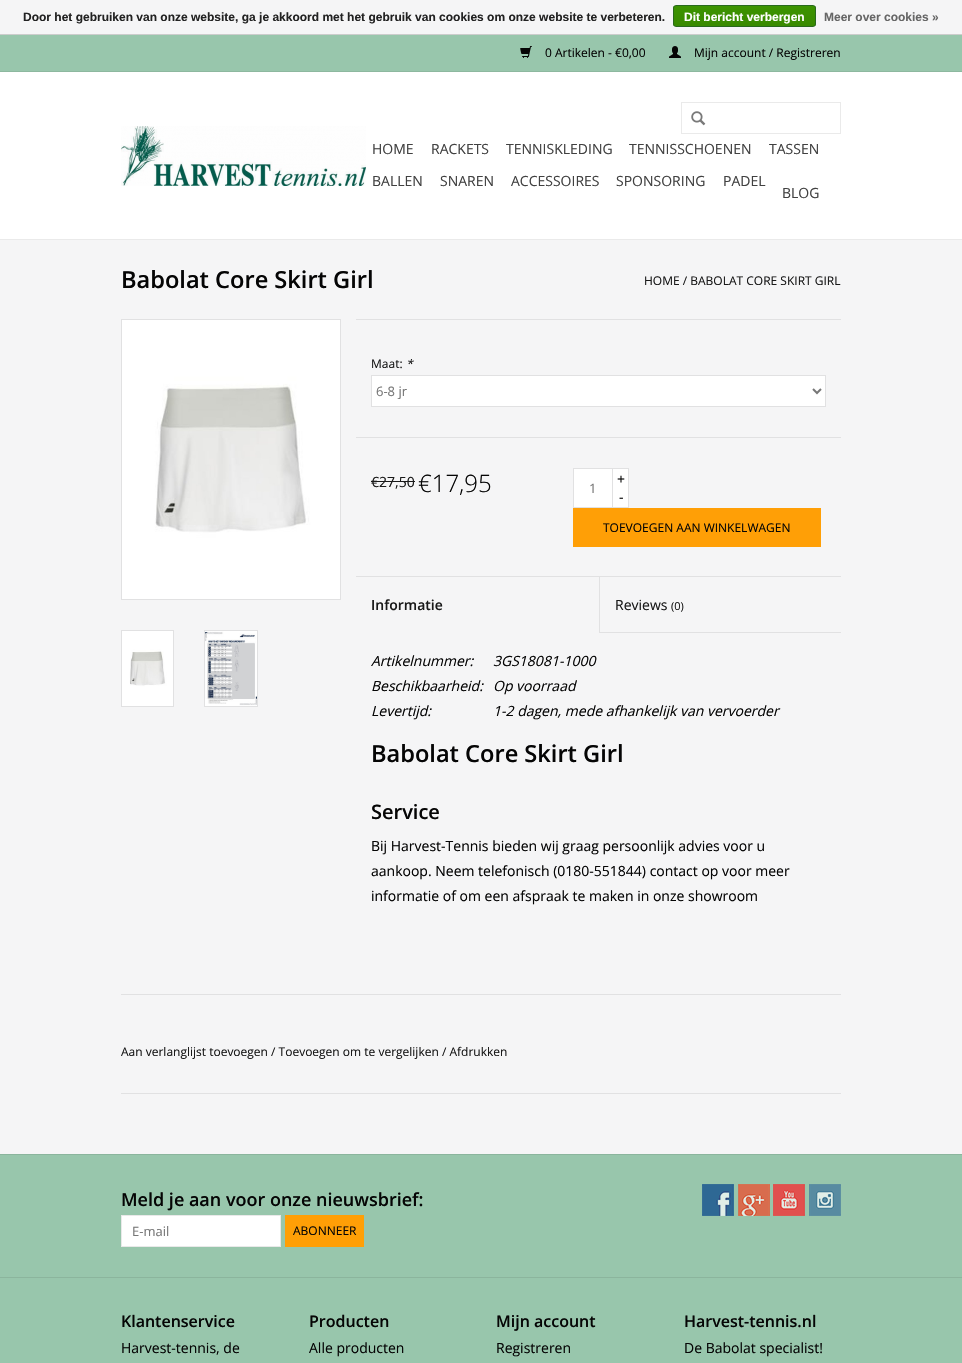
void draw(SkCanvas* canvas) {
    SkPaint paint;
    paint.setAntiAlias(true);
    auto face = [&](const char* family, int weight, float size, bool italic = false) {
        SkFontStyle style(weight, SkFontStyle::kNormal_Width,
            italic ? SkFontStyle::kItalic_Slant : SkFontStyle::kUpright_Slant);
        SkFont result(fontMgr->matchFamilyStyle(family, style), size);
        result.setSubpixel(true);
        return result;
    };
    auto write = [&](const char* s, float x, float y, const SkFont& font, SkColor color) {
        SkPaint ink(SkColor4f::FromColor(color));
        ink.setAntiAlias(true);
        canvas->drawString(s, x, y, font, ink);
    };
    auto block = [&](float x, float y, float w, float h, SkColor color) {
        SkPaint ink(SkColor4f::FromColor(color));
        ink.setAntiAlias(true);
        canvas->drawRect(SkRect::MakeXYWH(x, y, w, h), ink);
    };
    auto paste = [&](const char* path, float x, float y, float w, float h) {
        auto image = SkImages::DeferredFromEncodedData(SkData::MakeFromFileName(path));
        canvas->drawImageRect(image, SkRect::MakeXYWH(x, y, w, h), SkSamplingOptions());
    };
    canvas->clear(SkColorSetRGB(245, 245, 246));
    block(0, 34, 962, 1, SkColorSetRGB(204, 204, 204));
    auto kFont1 = face("Liberation Sans", 700, 12);
    write("Door het gebruiken van onze website, ga je akkoord met het gebruik van cookies om onze website te verbeteren.", 23, 21, kFont1, SkColorSetRGB(34, 34, 34));
    canvas->save();
    canvas->clipPath(SkPathBuilder().moveTo(676, 5).lineTo(813, 5).cubicTo(814.5f, 5, 816, 6.5f, 816, 8).lineTo(816, 24).cubicTo(816, 25.5f, 814.5f, 27, 813, 27).lineTo(676, 27).cubicTo(674.5f, 27, 673, 25.5f, 673, 24).lineTo(673, 8).cubicTo(673, 6.5f, 674.5f, 5, 676, 5).close().detach(), true);
    {
        const SkColor colors[] = {SkColorSetRGB(60, 147, 0), SkColorSetRGB(57, 138, 0)};
        const float stops[] = {0, 1};
        const SkPoint ends[] = {{745, 6}, {745, 26}};
        paint.setShader(SkGradientShader::MakeLinear(ends, colors, stops, 2, SkTileMode::kClamp));
        paint.setAlpha(255);
    }
    canvas->drawRect(SkRect::MakeXYWH(673, 6, 143, 20), paint);
    canvas->restore();
    paint.setStyle(SkPaint::kStroke_Style);
    paint.setStrokeWidth(1);
    paint.setShader(nullptr);
    paint.setColor(SkColorSetRGB(41, 105, 29));
    canvas->drawRoundRect(SkRect::MakeXYWH(673.5f, 5.5f, 142, 21), 2.5f, 2.5f, paint);
    write("Dit bericht verbergen", 684, 21, kFont1, SK_ColorWHITE);
    write("Meer over cookies »", 824, 21, kFont1, SkColorSetRGB(102, 102, 102));
    block(0, 72, 962, 167, SK_ColorWHITE);
    block(0, 239, 962, 1, SkColorSetRGB(234, 234, 234));
    block(0, 35, 962, 36, SkColorSetRGB(152, 198, 172));
    block(0, 71, 962, 1, SkColorSetRGB(141, 184, 159));
    paste("pic1.png", 520, 46, 12, 12);
    auto kFont2 = face("Open Sans", 400, 12);
    write("0 Artikelen - €0,00", 545, 57, kFont2, SkColorSetRGB(5, 5, 5));
    paste("pic2.png", 669, 46, 12, 12);
    write("Mijn account / Registreren", 694, 57, kFont2, SkColorSetRGB(5, 5, 5));
    paste("pic3.png", 121, 126, 245, 60);
    paint.setColor(SkColorSetRGB(234, 234, 234));
    canvas->drawRect(SkRect::MakeXYWH(681.5f, 102.5f, 159, 31), paint);
    paste("pic4.png", 691, 111, 15, 15);
    auto kFont3 = face("Open Sans", 400, 14);
    write("HOME", 372, 154, kFont3, SkColorSetRGB(65, 65, 65));
    write("RACKETS", 431, 154, kFont3, SkColorSetRGB(65, 65, 65));
    write("TENNISKLEDING", 506, 154, kFont3, SkColorSetRGB(65, 65, 65));
    write("TENNISSCHOENEN", 629, 154, kFont3, SkColorSetRGB(65, 65, 65));
    write("TASSEN", 769, 154, kFont3, SkColorSetRGB(65, 65, 65));
    write("BALLEN", 372, 186, kFont3, SkColorSetRGB(65, 65, 65));
    write("SNAREN", 440, 186, kFont3, SkColorSetRGB(65, 65, 65));
    write("ACCESSOIRES", 511, 186, kFont3, SkColorSetRGB(65, 65, 65));
    write("SPONSORING", 616, 186, kFont3, SkColorSetRGB(65, 65, 65));
    write("PADEL", 723, 186, kFont3, SkColorSetRGB(65, 65, 65));
    write("BLOG", 782, 198, kFont3, SkColorSetRGB(65, 65, 65));
    auto kFont4 = face("Open Sans", 600, 23.6f);
    write("Babolat Core Skirt Girl", 121, 288, kFont4, SkColorSetRGB(5, 5, 5));
    write("HOME / BABOLAT CORE SKIRT GIRL", 644, 285, kFont2, SkColorSetRGB(25, 25, 25));
    paint.setColor(SkColorSetRGB(225, 225, 226));
    canvas->drawRect(SkRect::MakeXYWH(121.5f, 319.5f, 219, 280), paint);
    paste("pic5.png", 122, 320, 218, 279);
    canvas->drawRect(SkRect::MakeXYWH(121.5f, 630.5f, 52, 76), paint);
    paste("pic6.png", 122, 631, 51, 75);
    canvas->drawRect(SkRect::MakeXYWH(204.5f, 630.5f, 53, 76), paint);
    paste("pic7.png", 205, 631, 52, 75);
    block(356, 319, 485, 1, SkColorSetRGB(225, 225, 226));
    write("Maat:", 371, 368, kFont2, SkColorSetRGB(25, 25, 25));
    auto kFont5 = face("Open Sans", 400, 12, true);
    write("*", 406, 368, kFont5, SkColorSetRGB(25, 25, 25));
    paint.setStyle(SkPaint::kFill_Style);
    paint.setColor(SK_ColorWHITE);
    canvas->drawRect(SkRect::MakeXYWH(371.5f, 375.5f, 454, 31), paint);
    paint.setStyle(SkPaint::kStroke_Style);
    paint.setColor(SkColorSetRGB(225, 225, 226));
    canvas->drawRect(SkRect::MakeXYWH(371.5f, 375.5f, 454, 31), paint);
    paint.setStrokeWidth(2);
    paint.setColor(SkColorSetRGB(119, 119, 119));
    canvas->drawPath(SkPathBuilder().moveTo(813, 389).lineTo(817, 393).lineTo(821, 389).detach(), paint);
    auto kFont6 = face("Open Sans", 400, 13);
    write("6-8 jr", 376, 396, kFont6, SkColorSetRGB(119, 119, 119));
    block(356, 437, 485, 1, SkColorSetRGB(225, 225, 226));
    write("€27,50", 371, 487, kFont3, SkColorSetRGB(25, 25, 25));
    block(371, 481, 44, 1, SkColorSetRGB(25, 25, 25));
    auto kFont7 = face("Open Sans", 300, 24);
    write("€17,95", 418, 492, kFont7, SkColorSetRGB(5, 5, 5));
    paint.setStyle(SkPaint::kFill_Style);
    paint.setColor(SK_ColorWHITE);
    canvas->drawRect(SkRect::MakeXYWH(573.5f, 468.5f, 39, 39), paint);
    paint.setStyle(SkPaint::kStroke_Style);
    paint.setStrokeWidth(1);
    paint.setColor(SkColorSetRGB(225, 225, 226));
    canvas->drawRect(SkRect::MakeXYWH(573.5f, 468.5f, 39, 39), paint);
    write("1", 589, 493, kFont6, SkColorSetRGB(119, 119, 119));
    block(613, 469, 15, 38, SK_ColorWHITE);
    block(613, 468, 16, 1, SkColorSetRGB(225, 225, 226));
    block(628, 468, 1, 40, SkColorSetRGB(225, 225, 226));
    block(613, 507, 16, 1, SkColorSetRGB(225, 225, 226));
    write("+", 617, 484, kFont3, SkColorSetRGB(5, 5, 5));
    write("-", 619, 502, kFont3, SkColorSetRGB(5, 5, 5));
    block(573, 508, 248, 39, SkColorSetRGB(255, 159, 6));
    write("TOEVOEGEN AAN WINKELWAGEN", 603, 532, kFont2, SkColorSetRGB(5, 5, 5));
    block(356, 576, 485, 1, SkColorSetRGB(225, 225, 226));
    auto kFont8 = face("Open Sans", 600, 14);
    write("Informatie", 371, 610, kFont8, SkColorSetRGB(25, 25, 25));
    block(599, 632, 242, 1, SkColorSetRGB(225, 225, 226));
    block(599, 577, 1, 56, SkColorSetRGB(225, 225, 226));
    write("Reviews", 615, 610, kFont3, SkColorSetRGB(25, 25, 25));
    auto kFont9 = face("Open Sans", 400, 11);
    write("(0)", 671, 610, kFont9, SkColorSetRGB(25, 25, 25));
    auto kFont10 = face("Open Sans", 400, 14, true);
    write("Artikelnummer:", 371, 666, kFont10, SkColorSetRGB(5, 5, 5));
    write("3GS18081-1000", 493, 666, kFont10, SkColorSetRGB(5, 5, 5));
    write("Beschikbaarheid:", 371, 691, kFont10, SkColorSetRGB(5, 5, 5));
    write("Op voorraad", 493, 691, kFont10, SkColorSetRGB(5, 5, 5));
    write("Levertijd:", 371, 716, kFont10, SkColorSetRGB(5, 5, 5));
    write("1-2 dagen, mede afhankelijk van vervoerder", 493, 716, kFont10, SkColorSetRGB(5, 5, 5));
    write("Babolat Core Skirt Girl", 371, 762, kFont4, SkColorSetRGB(5, 5, 5));
    auto kFont11 = face("Open Sans", 600, 20);
    write("Service", 371, 819, kFont11, SkColorSetRGB(5, 5, 5));
    write("Bij Harvest-Tennis bieden wij graag persoonlijk advies voor u", 371, 851, kFont3, SkColorSetRGB(5, 5, 5));
    write("aankoop. Neem telefonisch (0180-551844) contact op voor meer", 371, 876, kFont3, SkColorSetRGB(5, 5, 5));
    write("informatie of om een afspraak te maken in onze showroom", 371, 901, kFont3, SkColorSetRGB(5, 5, 5));
    block(121, 994, 720, 1, SkColorSetRGB(225, 225, 226));
    block(121, 1093, 720, 1, SkColorSetRGB(225, 225, 226));
    write("Aan verlanglijst toevoegen / Toevoegen om te vergelijken / Afdrukken", 121, 1056, kFont2, SkColorSetRGB(25, 25, 25));
    block(0, 1155, 962, 208, SkColorSetRGB(152, 198, 172));
    block(0, 1154, 962, 1, SkColorSetRGB(139, 181, 157));
    auto kFont12 = face("Open Sans", 600, 18);
    write("Meld je aan voor onze nieuwsbrief:", 121, 1206, kFont12, SkColorSetRGB(5, 5, 5));
    paint.setStyle(SkPaint::kFill_Style);
    paint.setColor(SK_ColorWHITE);
    canvas->drawRect(SkRect::MakeXYWH(121.5f, 1215.5f, 159, 31), paint);
    paint.setStyle(SkPaint::kStroke_Style);
    paint.setColor(SkColorSetRGB(233, 233, 233));
    canvas->drawRect(SkRect::MakeXYWH(121.5f, 1215.5f, 159, 31), paint);
    write("E-mail", 132, 1236, kFont6, SkColorSetRGB(119, 119, 119));
    block(285, 1215, 79, 32, SkColorSetRGB(255, 159, 6));
    write("ABONNEER", 293, 1235, kFont2, SkColorSetRGB(5, 5, 5));
    paste("pic8.png", 702, 1184, 32, 32);
    paste("pic9.png", 738, 1184, 32, 32);
    paste("pic10.png", 773, 1184, 32, 32);
    paste("pic11.png", 809, 1184, 32, 32);
    block(0, 1277, 962, 1, SkColorSetRGB(139, 181, 157));
    auto kFont13 = face("Open Sans", 600, 16);
    write("Klantenservice", 121, 1327, kFont13, SkColorSetRGB(5, 5, 5));
    write("Harvest-tennis, de", 121, 1353, kFont3, SkColorSetRGB(5, 5, 5));
    write("Producten", 309, 1327, kFont13, SkColorSetRGB(5, 5, 5));
    write("Alle producten", 309, 1353, kFont3, SkColorSetRGB(5, 5, 5));
    write("Mijn account", 496, 1327, kFont13, SkColorSetRGB(5, 5, 5));
    write("Registreren", 496, 1353, kFont3, SkColorSetRGB(5, 5, 5));
    write("Harvest-tennis.nl", 684, 1327, kFont13, SkColorSetRGB(5, 5, 5));
    write("De Babolat specialist!", 684, 1353, kFont3, SkColorSetRGB(5, 5, 5));
}
